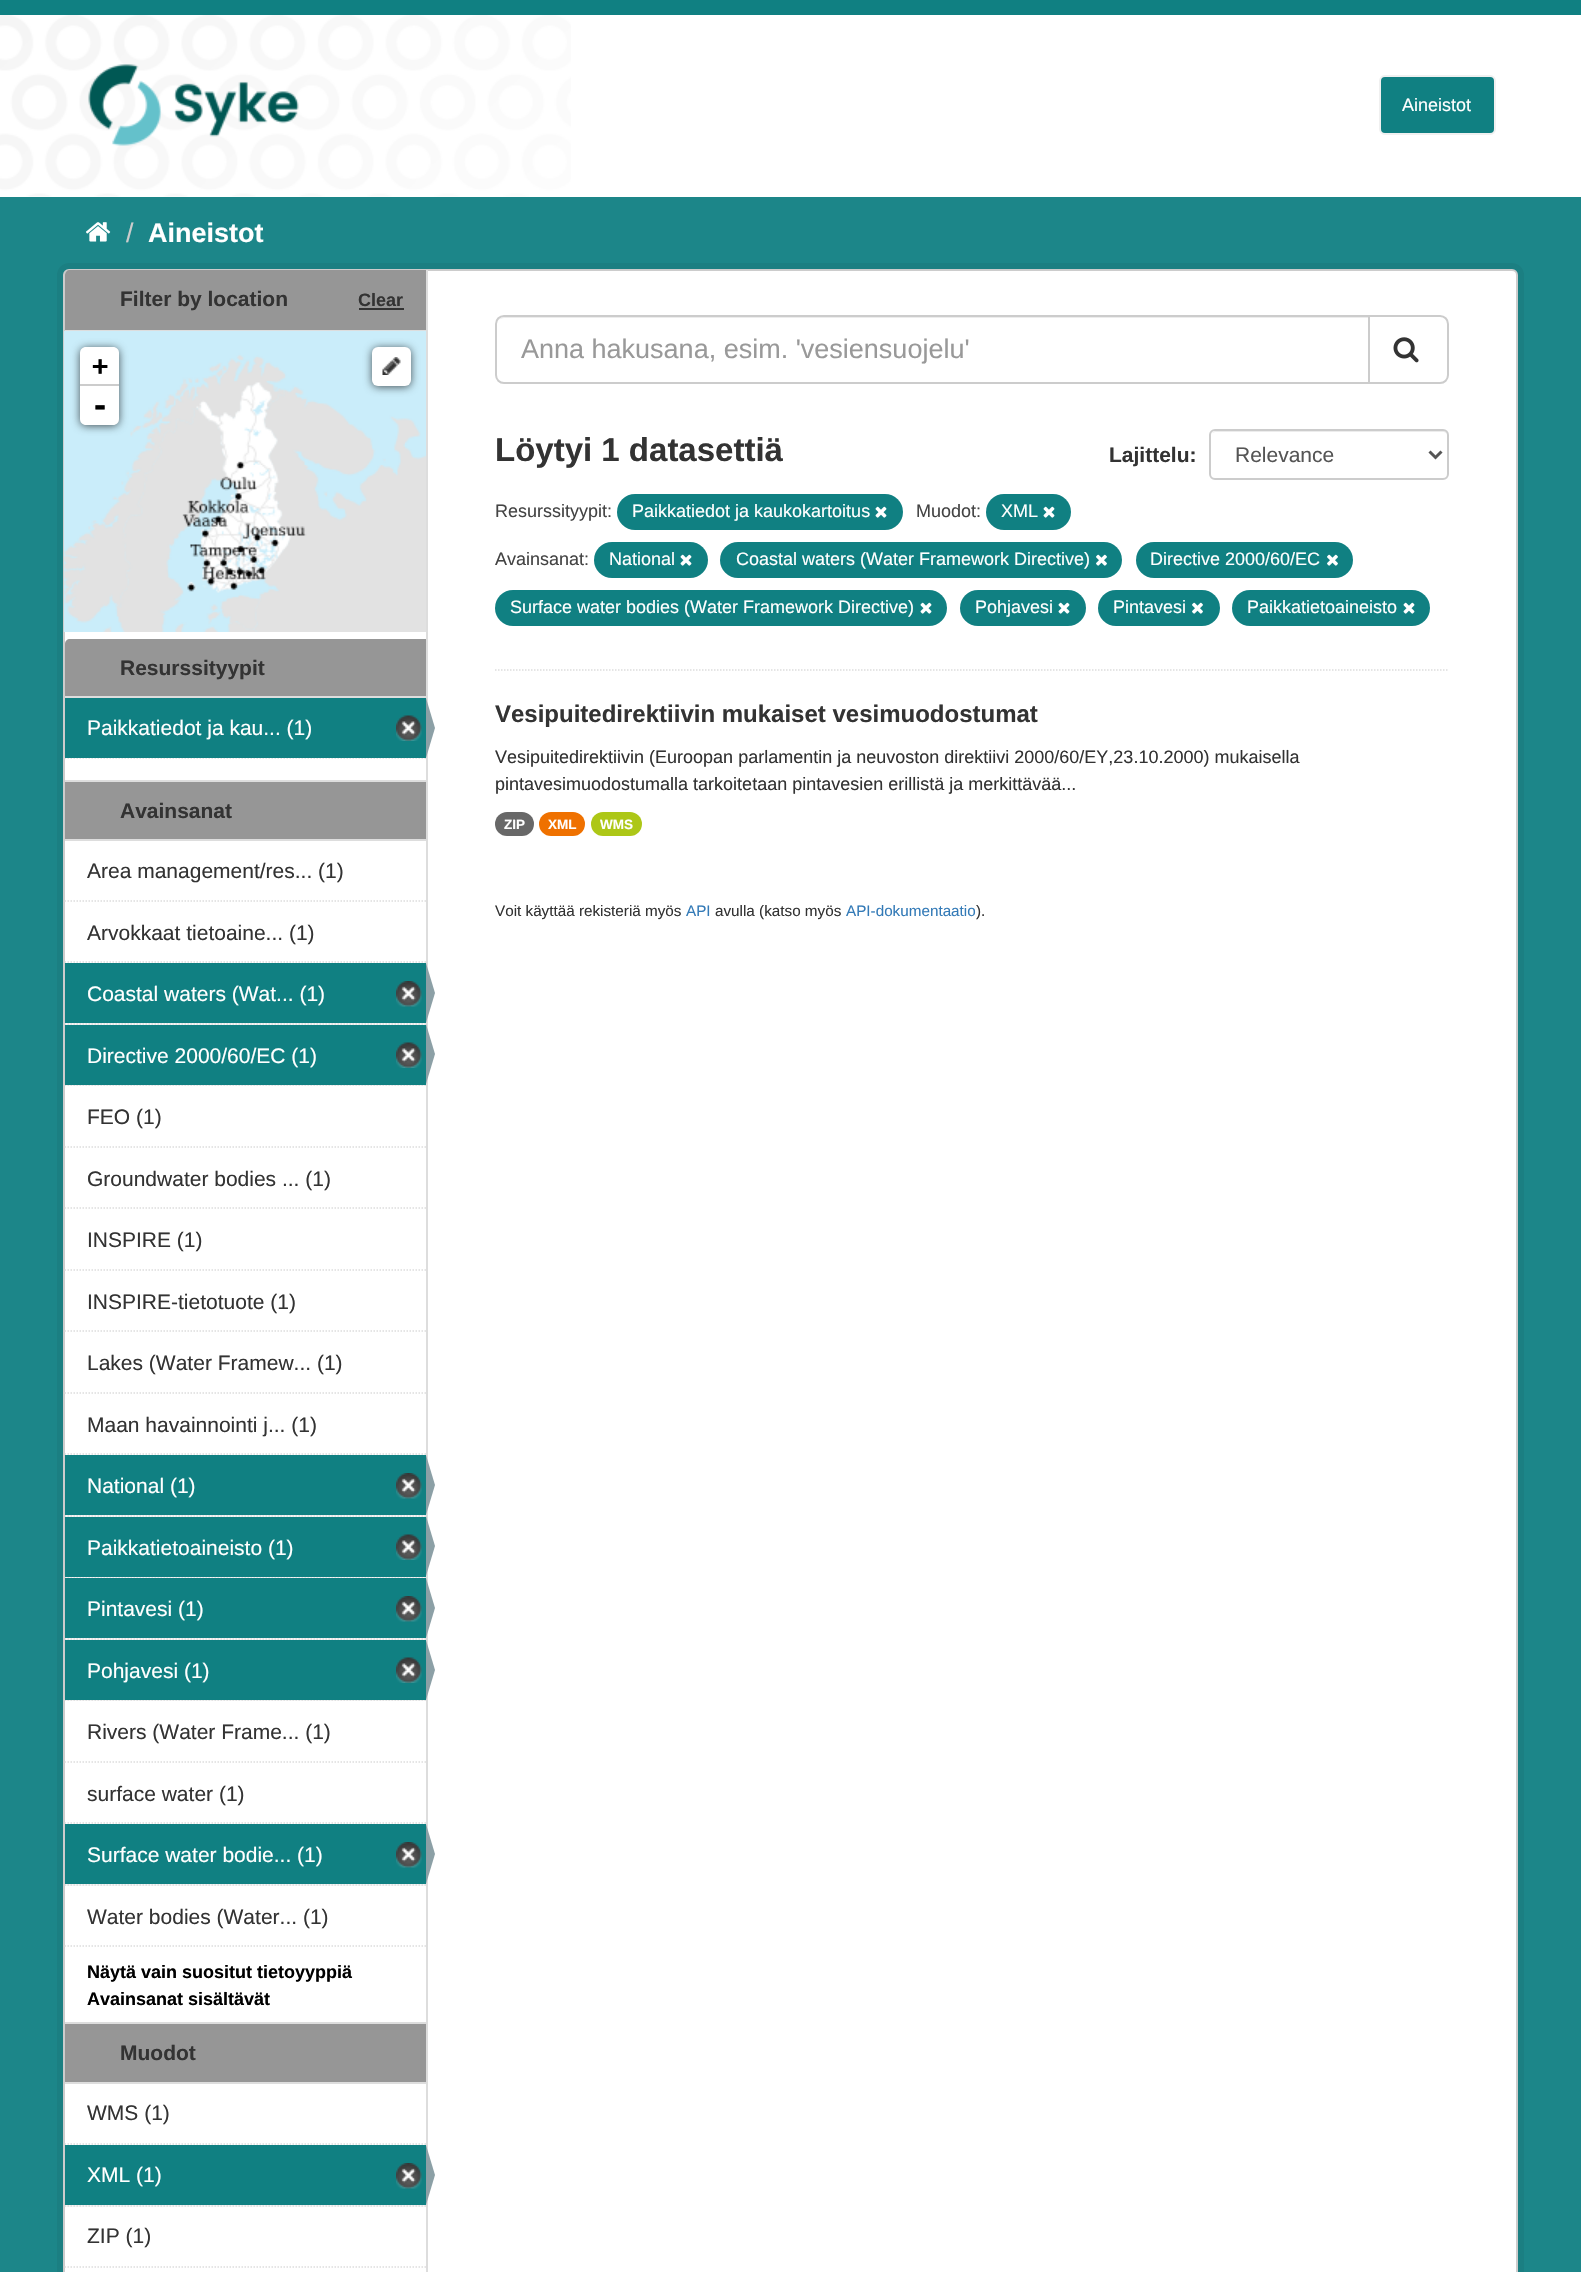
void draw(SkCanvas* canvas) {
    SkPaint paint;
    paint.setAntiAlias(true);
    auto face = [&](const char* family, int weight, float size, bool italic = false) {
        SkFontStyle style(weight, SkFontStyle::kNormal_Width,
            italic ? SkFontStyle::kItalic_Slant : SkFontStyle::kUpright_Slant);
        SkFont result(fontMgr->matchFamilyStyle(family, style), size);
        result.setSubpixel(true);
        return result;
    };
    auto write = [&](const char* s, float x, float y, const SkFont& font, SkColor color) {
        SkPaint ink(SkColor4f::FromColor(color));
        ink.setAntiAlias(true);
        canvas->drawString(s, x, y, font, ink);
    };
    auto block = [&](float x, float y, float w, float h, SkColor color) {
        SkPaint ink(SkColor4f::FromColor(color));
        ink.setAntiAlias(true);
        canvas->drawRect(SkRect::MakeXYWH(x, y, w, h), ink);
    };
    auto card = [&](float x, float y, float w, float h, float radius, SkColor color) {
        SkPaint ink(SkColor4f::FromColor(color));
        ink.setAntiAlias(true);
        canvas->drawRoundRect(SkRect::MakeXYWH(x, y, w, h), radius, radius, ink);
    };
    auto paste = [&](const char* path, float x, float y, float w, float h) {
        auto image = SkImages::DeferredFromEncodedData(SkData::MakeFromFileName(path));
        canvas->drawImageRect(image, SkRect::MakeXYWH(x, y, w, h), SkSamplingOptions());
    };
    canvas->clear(SkColorSetRGB(16, 128, 130));
    block(0, 15, 1581, 182, SK_ColorWHITE);
    paste("pic1.png", 0, 15, 571, 182);
    paste("pic2.png", 88, 64, 211, 82);
    paint.setColor(SkColorSetRGB(16, 128, 130));
    canvas->drawRoundRect(SkRect::MakeXYWH(1380, 76, 115, 58), 5, 5, paint);
    paint.setStyle(SkPaint::kStroke_Style);
    paint.setStrokeWidth(2);
    paint.setColor(SkColorSetRGB(240, 240, 240));
    canvas->drawRoundRect(SkRect::MakeXYWH(1380, 76, 115, 58), 5, 5, paint);
    auto kFont1 = face("Liberation Sans", 400, 18);
    write("Aineistot", 1402, 111, kFont1, SK_ColorWHITE);
    block(0, 197, 1581, 2075, SkColorSetRGB(28, 134, 137));
    paste("pic3.png", 86, 222, 25, 20);
    auto kFont2 = face("Liberation Sans", 400, 27);
    write("/", 126, 242, kFont2, SkColorSetRGB(204, 204, 204));
    auto kFont3 = face("Liberation Sans", 700, 27);
    write("Aineistot", 148, 242, kFont3, SK_ColorWHITE);
    paint.setStrokeWidth(6);
    paint.setColor(SkColorSetRGB(27, 127, 130));
    canvas->drawRoundRect(SkRect::MakeXYWH(60, 266, 1461, 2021), 9, 9, paint);
    paint.setStyle(SkPaint::kFill_Style);
    paint.setColor(SK_ColorWHITE);
    canvas->drawRoundRect(SkRect::MakeXYWH(64, 270, 1453, 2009), 5, 5, paint);
    paint.setStyle(SkPaint::kStroke_Style);
    paint.setStrokeWidth(2);
    paint.setColor(SkColorSetRGB(204, 204, 204));
    canvas->drawRoundRect(SkRect::MakeXYWH(64, 270, 1453, 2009), 5, 5, paint);
    paint.setStyle(SkPaint::kFill_Style);
    paint.setColor(SkColorSetRGB(150, 150, 150));
    canvas->drawPath(SkPathBuilder().moveTo(70, 270).lineTo(426, 270).lineTo(426, 332).lineTo(65, 332).lineTo(65, 275).cubicTo(65, 272, 67, 270, 70, 270).close().detach(), paint);
    block(65, 330, 361, 1, SkColorSetRGB(221, 221, 221));
    auto kFont4 = face("Liberation Sans", 700, 21);
    write("Filter by location", 120, 306, kFont4, SkColorSetRGB(51, 51, 51));
    auto kFont5 = face("Liberation Sans", 700, 18);
    write("Clear", 358, 306, kFont5, SkColorSetRGB(51, 51, 51));
    block(359, 308, 45, 2, SkColorSetRGB(51, 51, 51));
    paste("pic4.png", 64, 331, 341, 134);
    paste("pic5.png", 405, 331, 21, 134);
    paste("pic6.png", 64, 465, 341, 167);
    block(405, 465, 21, 167, SkColorSetRGB(226, 226, 226));
    paint.setColor(SkColorSetARGB(166, 0, 0, 0));
    paint.setMaskFilter(SkMaskFilter::MakeBlur(kNormal_SkBlurStyle, 4));
    canvas->drawRoundRect(SkRect::MakeXYWH(80, 348, 39, 78), 6, 6, paint);
    paint.setMaskFilter(nullptr);
    paint.setColor(SK_ColorWHITE);
    canvas->drawPath(SkPathBuilder().moveTo(86, 347).lineTo(113, 347).cubicTo(116.5f, 347, 119, 349.5f, 119, 353).lineTo(119, 386).lineTo(80, 386).lineTo(80, 353).cubicTo(80, 349.5f, 82.5f, 347, 86, 347).close().detach(), paint);
    block(80, 384, 39, 2, SkColorSetRGB(204, 204, 204));
    auto kFont6 = face("DejaVu Sans Mono", 700, 27);
    write("+", 92, 375, kFont6, SK_ColorBLACK);
    canvas->drawPath(SkPathBuilder().moveTo(80, 386).lineTo(119, 386).lineTo(119, 419).cubicTo(119, 422.5f, 116.5f, 425, 113, 425).lineTo(86, 425).cubicTo(82.5f, 425, 80, 422.5f, 80, 419).close().detach(), paint);
    auto kFont7 = face("DejaVu Sans Mono", 700, 30);
    write("-", 91, 416, kFont7, SK_ColorBLACK);
    paint.setColor(SkColorSetARGB(166, 0, 0, 0));
    paint.setMaskFilter(SkMaskFilter::MakeBlur(kNormal_SkBlurStyle, 4));
    canvas->drawRoundRect(SkRect::MakeXYWH(372, 348, 39, 39), 6, 6, paint);
    paint.setMaskFilter(nullptr);
    card(372, 347, 39, 39, 6, SK_ColorWHITE);
    paste("pic7.png", 382, 357, 19, 18);
    paint.setColor(SkColorSetRGB(150, 150, 150));
    canvas->drawPath(SkPathBuilder().moveTo(70, 639).lineTo(426, 639).lineTo(426, 698).lineTo(65, 698).lineTo(65, 644).cubicTo(65, 641, 67, 639, 70, 639).close().detach(), paint);
    block(65, 696, 361, 2, SkColorSetRGB(221, 221, 221));
    write("Resurssityypit", 120, 675, kFont4, SkColorSetRGB(51, 51, 51));
    paint.setStyle(SkPaint::kStroke_Style);
    paint.setStrokeWidth(1.5f);
    paint.setColor(SkColorSetRGB(221, 221, 221));
    paint.setPathEffect(SkDashPathEffect::Make({{1.5f, 1.5f}}, 0));
    canvas->drawPath(SkPathBuilder().moveTo(64.5f, 758).lineTo(426, 758).detach(), paint);
    paint.setPathEffect(nullptr);
    block(65, 698, 361, 60, SkColorSetRGB(16, 128, 130));
    auto kFont8 = face("Liberation Sans", 400, 21);
    write("Paikkatiedot ja kau... (1)", 87, 735, kFont8, SK_ColorWHITE);
    paste("pic8.png", 396, 715, 26, 26);
    block(426, 270, 2, 2002, SkColorSetRGB(221, 221, 221));
    paint.setStyle(SkPaint::kFill_Style);
    paint.setColor(SkColorSetRGB(140, 160, 166));
    canvas->drawPath(SkPathBuilder().moveTo(426, 758).lineTo(426, 698).lineTo(435, 728).close().detach(), paint);
    block(65, 782, 361, 57, SkColorSetRGB(150, 150, 150));
    block(65, 780, 361, 2, SkColorSetRGB(221, 221, 221));
    block(65, 839, 361, 2, SkColorSetRGB(221, 221, 221));
    write("Avainsanat", 120, 818, kFont4, SkColorSetRGB(51, 51, 51));
    paint.setStyle(SkPaint::kStroke_Style);
    paint.setColor(SkColorSetRGB(221, 221, 221));
    paint.setPathEffect(SkDashPathEffect::Make({{1.5f, 1.5f}}, 0));
    canvas->drawPath(SkPathBuilder().moveTo(64.5f, 901).lineTo(426, 901).detach(), paint);
    paint.setPathEffect(nullptr);
    write("Area management/res... (1)", 87, 878, kFont8, SkColorSetRGB(51, 51, 51));
    paint.setPathEffect(SkDashPathEffect::Make({{1.5f, 1.5f}}, 0));
    canvas->drawPath(SkPathBuilder().moveTo(64.5f, 962).lineTo(426, 962).detach(), paint);
    paint.setPathEffect(nullptr);
    write("Arvokkaat tietoaine... (1)", 87, 940, kFont8, SkColorSetRGB(51, 51, 51));
    block(65, 1023, 361, 2, SkColorSetRGB(246, 246, 246));
    paint.setPathEffect(SkDashPathEffect::Make({{1.5f, 1.5f}}, 0));
    canvas->drawPath(SkPathBuilder().moveTo(64.5f, 1024).lineTo(426, 1024).detach(), paint);
    paint.setPathEffect(nullptr);
    block(65, 963, 361, 60, SkColorSetRGB(16, 128, 130));
    write("Coastal waters (Wat... (1)", 87, 1001, kFont8, SK_ColorWHITE);
    paste("pic9.png", 396, 981, 26, 26);
    paint.setStyle(SkPaint::kFill_Style);
    paint.setColor(SkColorSetRGB(140, 160, 166));
    canvas->drawPath(SkPathBuilder().moveTo(426, 1023).lineTo(426, 963).lineTo(435, 993).close().detach(), paint);
    block(65, 1085, 361, 1, SkColorSetRGB(246, 246, 246));
    paint.setStyle(SkPaint::kStroke_Style);
    paint.setColor(SkColorSetRGB(221, 221, 221));
    paint.setPathEffect(SkDashPathEffect::Make({{1.5f, 1.5f}}, 0));
    canvas->drawPath(SkPathBuilder().moveTo(64.5f, 1085).lineTo(426, 1085).detach(), paint);
    paint.setPathEffect(nullptr);
    block(65, 1025, 361, 60, SkColorSetRGB(16, 128, 130));
    write("Directive 2000/60/EC (1)", 87, 1063, kFont8, SK_ColorWHITE);
    paste("pic8.png", 396, 1042, 26, 26);
    paint.setStyle(SkPaint::kFill_Style);
    paint.setColor(SkColorSetRGB(140, 160, 166));
    canvas->drawPath(SkPathBuilder().moveTo(426, 1084).lineTo(426, 1024).lineTo(435, 1054).close().detach(), paint);
    paint.setStyle(SkPaint::kStroke_Style);
    paint.setColor(SkColorSetRGB(221, 221, 221));
    paint.setPathEffect(SkDashPathEffect::Make({{1.5f, 1.5f}}, 0));
    canvas->drawPath(SkPathBuilder().moveTo(64.5f, 1147).lineTo(426, 1147).detach(), paint);
    paint.setPathEffect(nullptr);
    write("FEO (1)", 87, 1124, kFont8, SkColorSetRGB(51, 51, 51));
    paint.setPathEffect(SkDashPathEffect::Make({{1.5f, 1.5f}}, 0));
    canvas->drawPath(SkPathBuilder().moveTo(64.5f, 1208).lineTo(426, 1208).detach(), paint);
    paint.setPathEffect(nullptr);
    write("Groundwater bodies ... (1)", 87, 1186, kFont8, SkColorSetRGB(51, 51, 51));
    paint.setPathEffect(SkDashPathEffect::Make({{1.5f, 1.5f}}, 0));
    canvas->drawPath(SkPathBuilder().moveTo(64.5f, 1270).lineTo(426, 1270).detach(), paint);
    paint.setPathEffect(nullptr);
    write("INSPIRE (1)", 87, 1247, kFont8, SkColorSetRGB(51, 51, 51));
    paint.setPathEffect(SkDashPathEffect::Make({{1.5f, 1.5f}}, 0));
    canvas->drawPath(SkPathBuilder().moveTo(64.5f, 1331).lineTo(426, 1331).detach(), paint);
    paint.setPathEffect(nullptr);
    write("INSPIRE-tietotuote (1)", 87, 1309, kFont8, SkColorSetRGB(51, 51, 51));
    paint.setPathEffect(SkDashPathEffect::Make({{1.5f, 1.5f}}, 0));
    canvas->drawPath(SkPathBuilder().moveTo(64.5f, 1393).lineTo(426, 1393).detach(), paint);
    paint.setPathEffect(nullptr);
    write("Lakes (Water Framew... (1)", 87, 1370, kFont8, SkColorSetRGB(51, 51, 51));
    paint.setPathEffect(SkDashPathEffect::Make({{1.5f, 1.5f}}, 0));
    canvas->drawPath(SkPathBuilder().moveTo(64.5f, 1454).lineTo(426, 1454).detach(), paint);
    paint.setPathEffect(nullptr);
    write("Maan havainnointi j... (1)", 87, 1432, kFont8, SkColorSetRGB(51, 51, 51));
    block(65, 1515, 361, 2, SkColorSetRGB(246, 246, 246));
    paint.setPathEffect(SkDashPathEffect::Make({{1.5f, 1.5f}}, 0));
    canvas->drawPath(SkPathBuilder().moveTo(64.5f, 1516).lineTo(426, 1516).detach(), paint);
    paint.setPathEffect(nullptr);
    block(65, 1455, 361, 60, SkColorSetRGB(16, 128, 130));
    write("National (1)", 87, 1493, kFont8, SK_ColorWHITE);
    paste("pic9.png", 396, 1473, 26, 26);
    paint.setStyle(SkPaint::kFill_Style);
    paint.setColor(SkColorSetRGB(140, 160, 166));
    canvas->drawPath(SkPathBuilder().moveTo(426, 1515).lineTo(426, 1455).lineTo(435, 1485).close().detach(), paint);
    block(65, 1577, 361, 1, SkColorSetRGB(246, 246, 246));
    paint.setStyle(SkPaint::kStroke_Style);
    paint.setColor(SkColorSetRGB(221, 221, 221));
    paint.setPathEffect(SkDashPathEffect::Make({{1.5f, 1.5f}}, 0));
    canvas->drawPath(SkPathBuilder().moveTo(64.5f, 1577).lineTo(426, 1577).detach(), paint);
    paint.setPathEffect(nullptr);
    block(65, 1517, 361, 60, SkColorSetRGB(16, 128, 130));
    write("Paikkatietoaineisto (1)", 87, 1555, kFont8, SK_ColorWHITE);
    paste("pic8.png", 396, 1534, 26, 26);
    paint.setStyle(SkPaint::kFill_Style);
    paint.setColor(SkColorSetRGB(140, 160, 166));
    canvas->drawPath(SkPathBuilder().moveTo(426, 1576).lineTo(426, 1516).lineTo(435, 1546).close().detach(), paint);
    block(65, 1638, 361, 2, SkColorSetRGB(246, 246, 246));
    paint.setStyle(SkPaint::kStroke_Style);
    paint.setColor(SkColorSetRGB(221, 221, 221));
    paint.setPathEffect(SkDashPathEffect::Make({{1.5f, 1.5f}}, 0));
    canvas->drawPath(SkPathBuilder().moveTo(64.5f, 1639).lineTo(426, 1639).detach(), paint);
    paint.setPathEffect(nullptr);
    block(65, 1578, 361, 60, SkColorSetRGB(16, 128, 130));
    write("Pintavesi (1)", 87, 1616, kFont8, SK_ColorWHITE);
    paste("pic9.png", 396, 1596, 26, 26);
    paint.setStyle(SkPaint::kFill_Style);
    paint.setColor(SkColorSetRGB(140, 160, 166));
    canvas->drawPath(SkPathBuilder().moveTo(426, 1638).lineTo(426, 1578).lineTo(435, 1608).close().detach(), paint);
    block(65, 1700, 361, 1, SkColorSetRGB(246, 246, 246));
    paint.setStyle(SkPaint::kStroke_Style);
    paint.setColor(SkColorSetRGB(221, 221, 221));
    paint.setPathEffect(SkDashPathEffect::Make({{1.5f, 1.5f}}, 0));
    canvas->drawPath(SkPathBuilder().moveTo(64.5f, 1700).lineTo(426, 1700).detach(), paint);
    paint.setPathEffect(nullptr);
    block(65, 1640, 361, 60, SkColorSetRGB(16, 128, 130));
    write("Pohjavesi (1)", 87, 1678, kFont8, SK_ColorWHITE);
    paste("pic8.png", 396, 1657, 26, 26);
    paint.setStyle(SkPaint::kFill_Style);
    paint.setColor(SkColorSetRGB(140, 160, 166));
    canvas->drawPath(SkPathBuilder().moveTo(426, 1700).lineTo(426, 1640).lineTo(435, 1670).close().detach(), paint);
    paint.setStyle(SkPaint::kStroke_Style);
    paint.setColor(SkColorSetRGB(221, 221, 221));
    paint.setPathEffect(SkDashPathEffect::Make({{1.5f, 1.5f}}, 0));
    canvas->drawPath(SkPathBuilder().moveTo(64.5f, 1762).lineTo(426, 1762).detach(), paint);
    paint.setPathEffect(nullptr);
    write("Rivers (Water Frame... (1)", 87, 1739, kFont8, SkColorSetRGB(51, 51, 51));
    paint.setPathEffect(SkDashPathEffect::Make({{1.5f, 1.5f}}, 0));
    canvas->drawPath(SkPathBuilder().moveTo(64.5f, 1823).lineTo(426, 1823).detach(), paint);
    paint.setPathEffect(nullptr);
    write("surface water (1)", 87, 1801, kFont8, SkColorSetRGB(51, 51, 51));
    block(65, 1884, 361, 2, SkColorSetRGB(246, 246, 246));
    paint.setPathEffect(SkDashPathEffect::Make({{1.5f, 1.5f}}, 0));
    canvas->drawPath(SkPathBuilder().moveTo(64.5f, 1885).lineTo(426, 1885).detach(), paint);
    paint.setPathEffect(nullptr);
    block(65, 1824, 361, 60, SkColorSetRGB(16, 128, 130));
    write("Surface water bodie... (1)", 87, 1862, kFont8, SK_ColorWHITE);
    paste("pic9.png", 396, 1842, 26, 26);
    paint.setStyle(SkPaint::kFill_Style);
    paint.setColor(SkColorSetRGB(140, 160, 166));
    canvas->drawPath(SkPathBuilder().moveTo(426, 1884).lineTo(426, 1824).lineTo(435, 1854).close().detach(), paint);
    write("Water bodies (Water... (1)", 87, 1924, kFont8, SkColorSetRGB(51, 51, 51));
    paint.setStyle(SkPaint::kStroke_Style);
    paint.setColor(SkColorSetRGB(221, 221, 221));
    paint.setPathEffect(SkDashPathEffect::Make({{1.5f, 1.5f}}, 0));
    canvas->drawPath(SkPathBuilder().moveTo(64.5f, 1946).lineTo(426, 1946).detach(), paint);
    paint.setPathEffect(nullptr);
    write("Näytä vain suositut tietoyyppiä", 87, 1978, kFont5, SK_ColorBLACK);
    write("Avainsanat sisältävät", 87, 2005, kFont5, SK_ColorBLACK);
    block(65, 2024, 361, 58, SkColorSetRGB(150, 150, 150));
    block(65, 2022, 361, 2, SkColorSetRGB(221, 221, 221));
    block(65, 2082, 361, 2, SkColorSetRGB(221, 221, 221));
    write("Muodot", 120, 2060, kFont4, SkColorSetRGB(51, 51, 51));
    paint.setPathEffect(SkDashPathEffect::Make({{1.5f, 1.5f}}, 0));
    canvas->drawPath(SkPathBuilder().moveTo(64.5f, 2144).lineTo(426, 2144).detach(), paint);
    paint.setPathEffect(nullptr);
    write("WMS (1)", 87, 2120, kFont8, SkColorSetRGB(51, 51, 51));
    block(65, 2205, 361, 2, SkColorSetRGB(246, 246, 246));
    paint.setPathEffect(SkDashPathEffect::Make({{1.5f, 1.5f}}, 0));
    canvas->drawPath(SkPathBuilder().moveTo(64.5f, 2206).lineTo(426, 2206).detach(), paint);
    paint.setPathEffect(nullptr);
    block(65, 2145, 361, 60, SkColorSetRGB(16, 128, 130));
    write("XML (1)", 87, 2182, kFont8, SK_ColorWHITE);
    paste("pic9.png", 396, 2163, 26, 26);
    paint.setStyle(SkPaint::kFill_Style);
    paint.setColor(SkColorSetRGB(140, 160, 166));
    canvas->drawPath(SkPathBuilder().moveTo(426, 2205).lineTo(426, 2145).lineTo(435, 2175).close().detach(), paint);
    write("ZIP (1)", 87, 2243, kFont8, SkColorSetRGB(51, 51, 51));
    paint.setStyle(SkPaint::kStroke_Style);
    paint.setColor(SkColorSetRGB(221, 221, 221));
    paint.setPathEffect(SkDashPathEffect::Make({{1.5f, 1.5f}}, 0));
    canvas->drawPath(SkPathBuilder().moveTo(64.5f, 2267).lineTo(426, 2267).detach(), paint);
    paint.setPathEffect(nullptr);
    paint.setPathEffect(SkDashPathEffect::Make({{1.5f, 1.5f}}, 0));
    canvas->drawPath(SkPathBuilder().moveTo(495, 670).lineTo(1449, 670).detach(), paint);
    paint.setPathEffect(nullptr);
    paint.setStyle(SkPaint::kFill_Style);
    paint.setColor(SkColorSetRGB(236, 236, 236));
    canvas->drawPath(SkPathBuilder().moveTo(504, 318).lineTo(1368, 318).lineTo(1368, 317).lineTo(505, 317).cubicTo(503, 317, 500, 318, 499, 320).cubicTo(500, 319, 502, 318, 504, 318).close().detach(), paint);
    paint.setStyle(SkPaint::kStroke_Style);
    paint.setStrokeWidth(2);
    paint.setColor(SkColorSetRGB(204, 204, 204));
    canvas->drawPath(SkPathBuilder().moveTo(504, 316).lineTo(1369, 316).lineTo(1369, 383).lineTo(504, 383).cubicTo(499.5f, 383, 496, 379.5f, 496, 375).lineTo(496, 324).cubicTo(496, 319.5f, 499.5f, 316, 504, 316).close().detach(), paint);
    write("Anna hakusana, esim. 'vesiensuojelu'", 521, 358, kFont2, SkColorSetRGB(153, 153, 153));
    paint.setStyle(SkPaint::kFill_Style);
    paint.setColor(SK_ColorWHITE);
    canvas->drawPath(SkPathBuilder().moveTo(1369, 316).lineTo(1440, 316).cubicTo(1444.5f, 316, 1448, 319.5f, 1448, 324).lineTo(1448, 375).cubicTo(1448, 379.5f, 1444.5f, 383, 1440, 383).lineTo(1369, 383).close().detach(), paint);
    paint.setStyle(SkPaint::kStroke_Style);
    paint.setColor(SkColorSetRGB(204, 204, 204));
    canvas->drawPath(SkPathBuilder().moveTo(1369, 316).lineTo(1440, 316).cubicTo(1444.5f, 316, 1448, 319.5f, 1448, 324).lineTo(1448, 375).cubicTo(1448, 379.5f, 1444.5f, 383, 1440, 383).lineTo(1369, 383).close().detach(), paint);
    paste("pic10.png", 1393, 337, 26, 26);
    auto kFont9 = face("Liberation Sans", 700, 33);
    write("Löytyi 1 datasettiä", 495, 461, kFont9, SkColorSetRGB(51, 51, 51));
    write("Lajittelu:", 1109, 462, kFont4, SkColorSetRGB(51, 51, 51));
    paint.setStyle(SkPaint::kFill_Style);
    paint.setColor(SkColorSetRGB(236, 236, 236));
    canvas->drawPath(SkPathBuilder().moveTo(1215, 432).lineTo(1443, 432).cubicTo(1445, 432, 1448, 434, 1448, 436).cubicTo(1448, 433, 1446, 431, 1443, 431).lineTo(1216, 431).cubicTo(1214, 431, 1213, 432, 1212, 433).close().detach(), paint);
    paint.setStyle(SkPaint::kStroke_Style);
    paint.setColor(SkColorSetRGB(204, 204, 204));
    canvas->drawRoundRect(SkRect::MakeXYWH(1210, 430, 238, 49), 5, 5, paint);
    paint.setStrokeWidth(3);
    paint.setColor(SkColorSetRGB(85, 85, 85));
    canvas->drawPath(SkPathBuilder().moveTo(1429.5f, 451.5f).lineTo(1435.5f, 457.5f).lineTo(1441.5f, 451.5f).detach(), paint);
    write("Relevance", 1235, 462, kFont8, SkColorSetRGB(85, 85, 85));
    write("Resurssityypit:", 495, 517, kFont1, SkColorSetRGB(68, 68, 68));
    card(617, 494, 286, 36, 18, SkColorSetRGB(16, 128, 130));
    write("Paikkatiedot ja kaukokartoitus", 632, 517, kFont1, SK_ColorWHITE);
    paste("pic11.png", 875, 506, 12, 12);
    write("Muodot:", 916, 517, kFont1, SkColorSetRGB(68, 68, 68));
    card(986, 494, 85, 36, 18, SkColorSetRGB(16, 128, 130));
    write("XML", 1001, 517, kFont1, SK_ColorWHITE);
    paste("pic11.png", 1043, 506, 12, 12);
    write("Avainsanat:", 495, 565, kFont1, SkColorSetRGB(68, 68, 68));
    card(594, 542, 114, 36, 18, SkColorSetRGB(16, 128, 130));
    write("National", 609, 565, kFont1, SK_ColorWHITE);
    paste("pic11.png", 680, 554, 12, 12);
    card(720, 542, 402, 36, 18, SkColorSetRGB(16, 128, 130));
    write("Coastal waters (Water Framework Directive)", 736, 565, kFont1, SK_ColorWHITE);
    paste("pic12.png", 1096, 554, 11, 12);
    card(1136, 542, 217, 36, 18, SkColorSetRGB(16, 128, 130));
    write("Directive 2000/60/EC", 1150, 565, kFont1, SK_ColorWHITE);
    paste("pic12.png", 1327, 554, 11, 12);
    card(495, 590, 452, 36, 18, SkColorSetRGB(16, 128, 130));
    write("Surface water bodies (Water Framework Directive)", 510, 613, kFont1, SK_ColorWHITE);
    paste("pic11.png", 920, 602, 12, 12);
    card(960, 590, 126, 36, 18, SkColorSetRGB(16, 128, 130));
    write("Pohjavesi", 975, 613, kFont1, SK_ColorWHITE);
    paste("pic11.png", 1058, 602, 12, 12);
    card(1098, 590, 122, 36, 18, SkColorSetRGB(16, 128, 130));
    write("Pintavesi", 1113, 613, kFont1, SK_ColorWHITE);
    paste("pic12.png", 1192, 602, 11, 12);
    card(1232, 590, 198, 36, 18, SkColorSetRGB(16, 128, 130));
    write("Paikkatietoaineisto", 1247, 613, kFont1, SK_ColorWHITE);
    paste("pic11.png", 1403, 602, 12, 12);
    auto kFont10 = face("Liberation Sans", 700, 24);
    write("Vesipuitedirektiivin mukaiset vesimuodostumat", 495, 722, kFont10, SkColorSetRGB(51, 51, 51));
    write("Vesipuitedirektiivin (Euroopan parlamentin ja neuvoston direktiivi 2000/60/EY,23.10.2000) mukaisella", 495, 763, kFont1, SkColorSetRGB(51, 51, 51));
    write("pintavesimuodostumalla tarkoitetaan pintavesien erillistä ja merkittävää...", 495, 790, kFont1, SkColorSetRGB(51, 51, 51));
    card(495, 812, 39, 24, 12, SkColorSetRGB(104, 104, 104));
    auto kFont11 = face("Liberation Sans", 700, 13.5f);
    write("ZIP", 504, 829, kFont11, SK_ColorWHITE);
    card(539, 812, 46, 24, 12, SkColorSetRGB(239, 113, 0));
    write("XML", 548, 829, kFont11, SK_ColorWHITE);
    card(591, 812, 51, 24, 12, SkColorSetRGB(173, 199, 23));
    write("WMS", 600, 829, kFont11, SK_ColorWHITE);
    auto kFont12 = face("Liberation Sans", 400, 15.25f);
    write("Voit käyttää rekisteriä myös", 495, 916, kFont12, SkColorSetRGB(51, 51, 51));
    write("API", 686, 916, kFont12, SkColorSetRGB(51, 122, 183));
    write("avulla (katso myös", 715, 916, kFont12, SkColorSetRGB(51, 51, 51));
    write("API-dokumentaatio", 846, 916, kFont12, SkColorSetRGB(51, 122, 183));
    write(").", 976, 916, kFont12, SkColorSetRGB(51, 51, 51));
}
